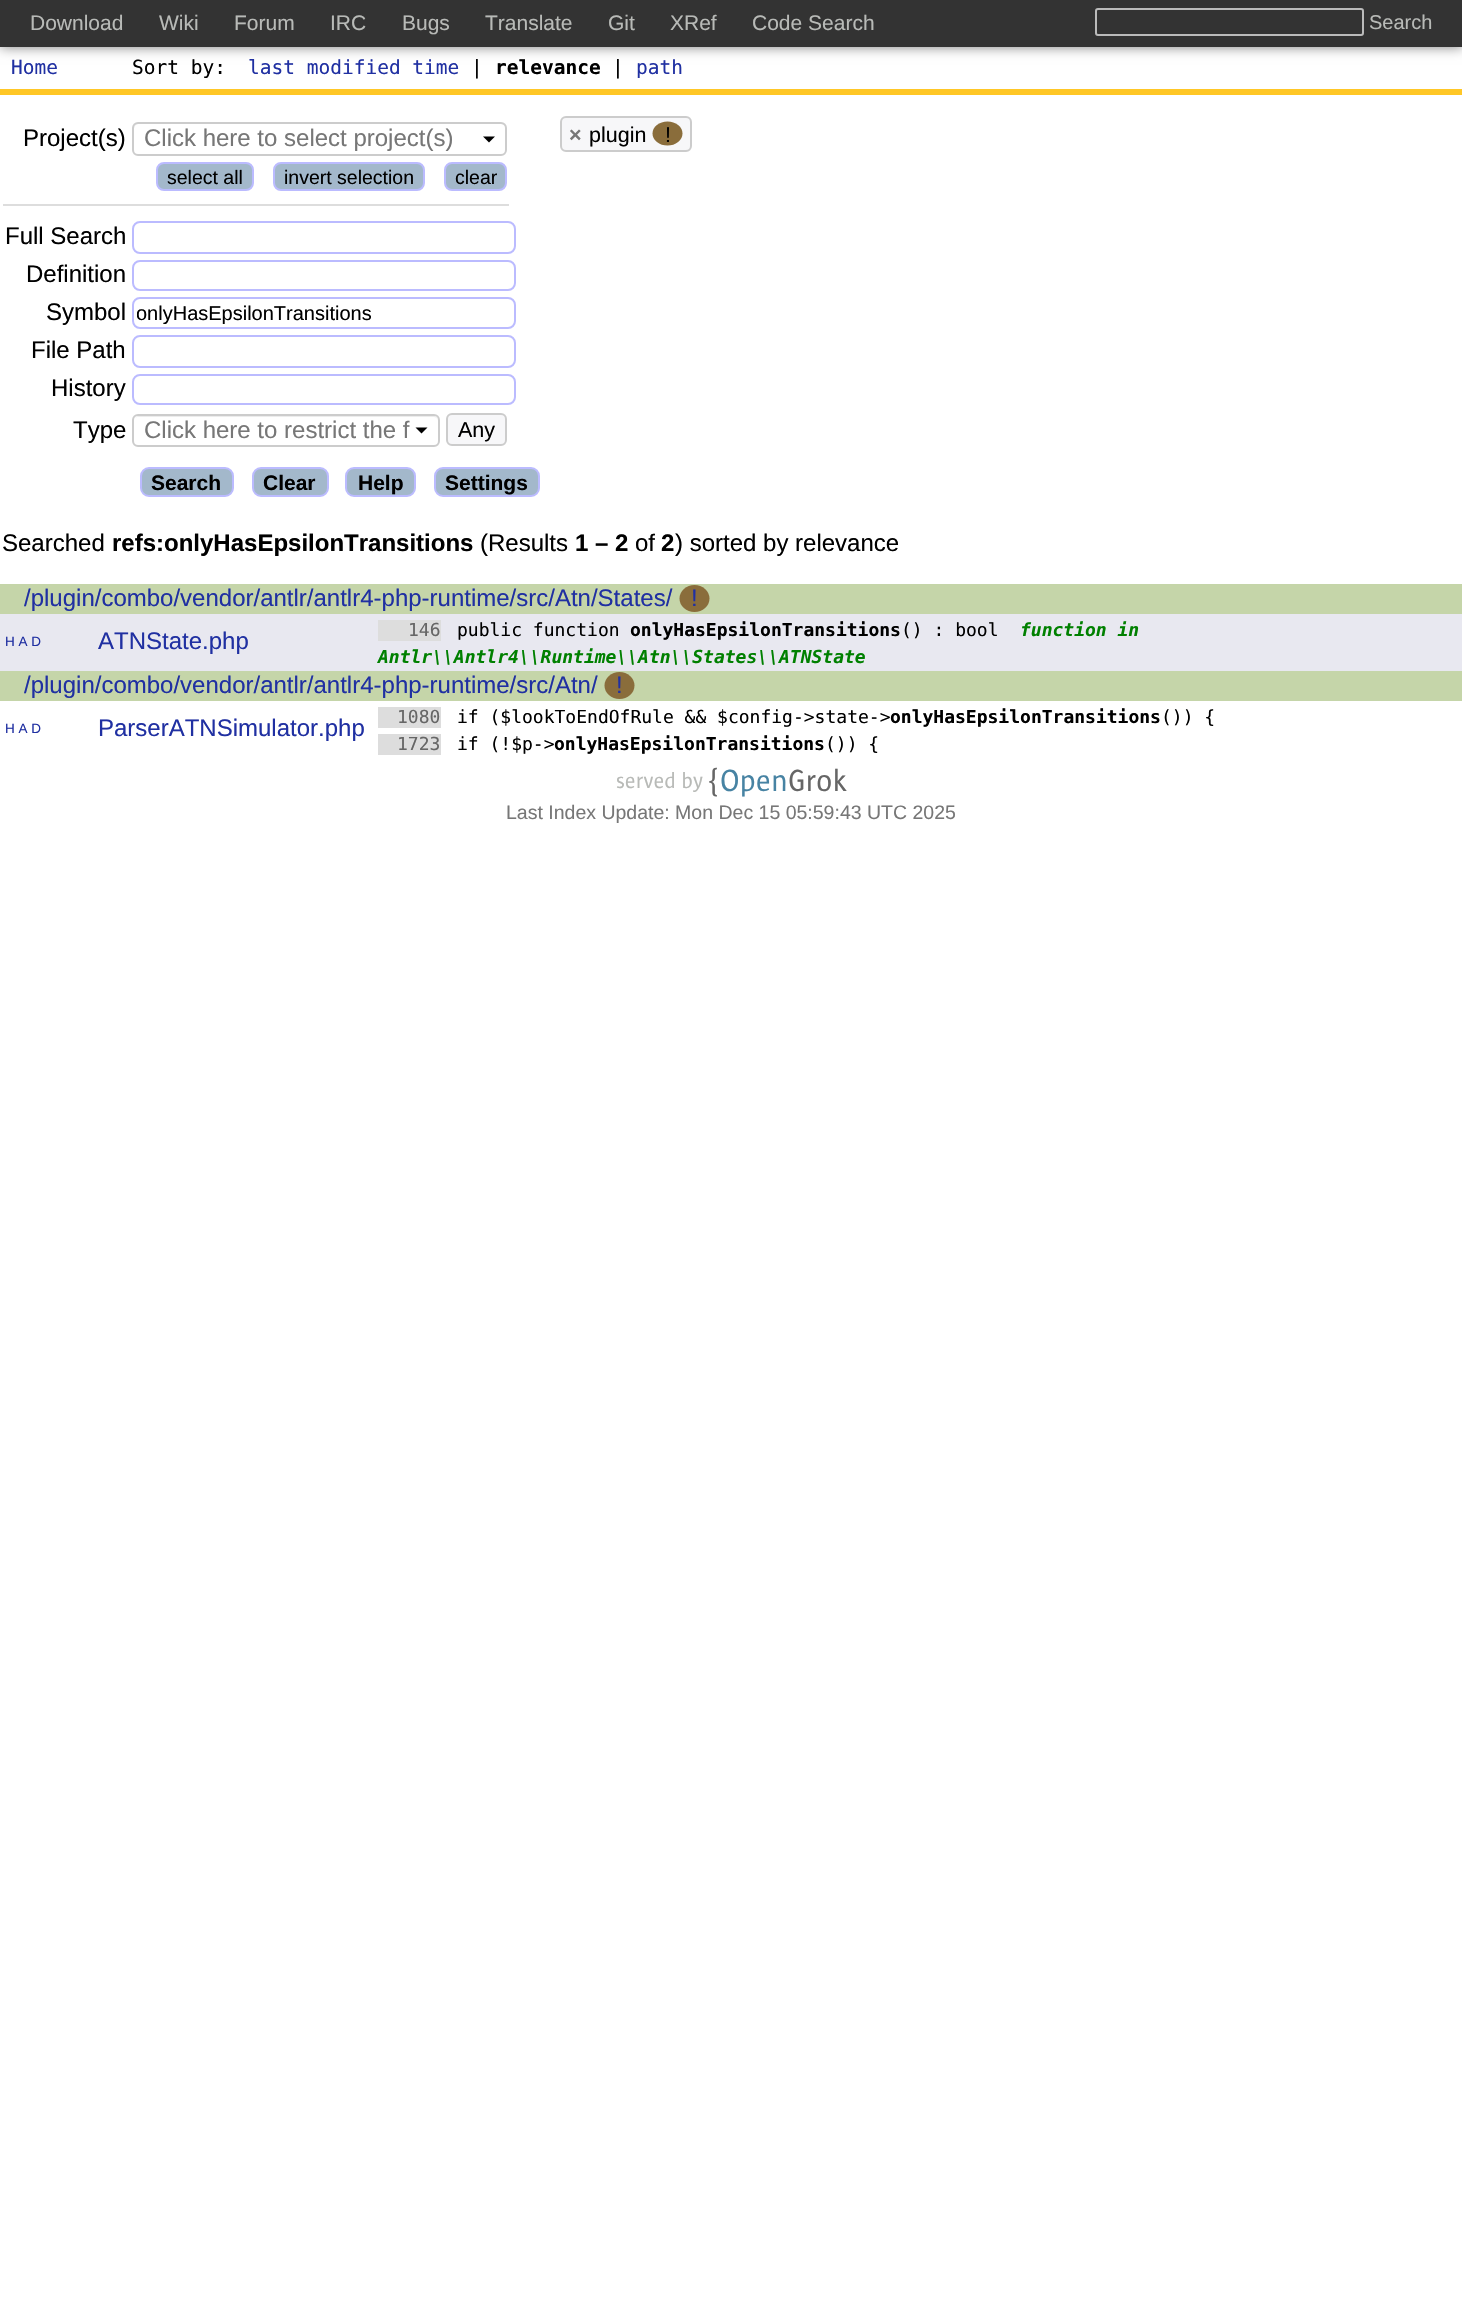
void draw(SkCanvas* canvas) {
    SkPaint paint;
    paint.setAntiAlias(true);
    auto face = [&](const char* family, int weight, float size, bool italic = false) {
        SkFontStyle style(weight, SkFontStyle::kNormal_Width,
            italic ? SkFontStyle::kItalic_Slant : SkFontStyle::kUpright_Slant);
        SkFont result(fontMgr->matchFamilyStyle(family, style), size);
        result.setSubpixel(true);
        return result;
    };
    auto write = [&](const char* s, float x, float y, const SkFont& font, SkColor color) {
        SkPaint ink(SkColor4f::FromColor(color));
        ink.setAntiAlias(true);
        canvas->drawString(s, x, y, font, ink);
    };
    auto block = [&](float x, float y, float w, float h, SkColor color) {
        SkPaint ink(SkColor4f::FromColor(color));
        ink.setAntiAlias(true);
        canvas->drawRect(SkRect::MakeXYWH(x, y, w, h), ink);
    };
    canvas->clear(SK_ColorWHITE);
    paint.setColor(SkColorSetARGB(128, 0, 0, 0));
    paint.setMaskFilter(SkMaskFilter::MakeBlur(kNormal_SkBlurStyle, 6));
    canvas->drawRect(SkRect::MakeXYWH(0, 0, 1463, 47), paint);
    paint.setMaskFilter(nullptr);
    block(0, 0, 1462, 47, SkColorSetRGB(51, 51, 51));
    auto kFont1 = face("Liberation Sans", 400, 21);
    write("Download", 30, 30, kFont1, SkColorSetRGB(184, 186, 183));
    write("Wiki", 159, 30, kFont1, SkColorSetRGB(184, 186, 183));
    write("Forum", 234, 30, kFont1, SkColorSetRGB(184, 186, 183));
    write("IRC", 330, 30, kFont1, SkColorSetRGB(184, 186, 183));
    write("Bugs", 402, 30, kFont1, SkColorSetRGB(184, 186, 183));
    write("Translate", 485, 30, kFont1, SkColorSetRGB(184, 186, 183));
    write("Git", 608, 30, kFont1, SkColorSetRGB(184, 186, 183));
    write("XRef", 670, 30, kFont1, SkColorSetRGB(184, 186, 183));
    write("Code Search", 752, 30, kFont1, SkColorSetRGB(184, 186, 183));
    paint.setStyle(SkPaint::kStroke_Style);
    paint.setStrokeWidth(2);
    paint.setColor(SkColorSetRGB(187, 187, 187));
    canvas->drawRoundRect(SkRect::MakeXYWH(1096, 9, 267, 26), 2, 2, paint);
    auto kFont2 = face("Liberation Sans", 400, 20);
    write("Search", 1369, 29, kFont2, SkColorSetRGB(184, 186, 183));
    auto kFont3 = face("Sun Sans", 400, 22.5f);
    write("served by", 616, 788, kFont3, SkColorSetRGB(184, 186, 183));
    auto kFont4 = face("Sun Sans", 400, 31.5f);
    write("{", 708, 791, kFont4, SkColorSetRGB(102, 102, 102));
    write("Open", 720, 791, kFont4, SkColorSetRGB(71, 131, 163));
    write("Grok", 788, 791, kFont4, SkColorSetRGB(102, 102, 102));
    auto kFont5 = face("Liberation Sans", 400, 19.5f);
    write("Last Index Update: Mon Dec 15 05:59:43 UTC 2025", 506, 819, kFont5, SkColorSetRGB(119, 119, 119));
    auto kFont6 = face("DejaVu Sans Mono", 400, 19.5f);
    write("Home", 11, 74, kFont6, SkColorSetRGB(32, 48, 162));
    write("Sort by:", 132, 74, kFont6, SK_ColorBLACK);
    write("last modified time", 248, 74, kFont6, SkColorSetRGB(32, 48, 162));
    write("|", 471, 74, kFont6, SK_ColorBLACK);
    auto kFont7 = face("DejaVu Sans Mono", 700, 19.5f);
    write("relevance", 495, 74, kFont7, SK_ColorBLACK);
    write("|", 612, 74, kFont6, SK_ColorBLACK);
    write("path", 636, 74, kFont6, SkColorSetRGB(32, 48, 162));
    block(0, 89, 1462, 6, SkColorSetRGB(255, 199, 38));
    auto kFont8 = face("Liberation Sans", 400, 24);
    write("Project(s)", 23, 146, kFont8, SK_ColorBLACK);
    paint.setStyle(SkPaint::kFill_Style);
    paint.setColor(SkColorSetRGB(236, 236, 236));
    canvas->drawPath(SkPathBuilder().moveTo(138, 124).lineTo(501, 124).cubicTo(503, 124, 506, 127, 506, 129).lineTo(506, 128).cubicTo(506, 125, 504, 123, 501, 123).lineTo(139, 123).cubicTo(136, 123, 134, 125, 134, 128).lineTo(134, 129).cubicTo(134, 127, 136, 124, 138, 124).close().detach(), paint);
    paint.setStyle(SkPaint::kStroke_Style);
    paint.setColor(SkColorSetRGB(204, 204, 204));
    canvas->drawRoundRect(SkRect::MakeXYWH(133, 123, 373, 32), 5, 5, paint);
    write("Click here to select project(s)", 144, 146, kFont8, SkColorSetRGB(119, 119, 119));
    paint.setStyle(SkPaint::kFill_Style);
    paint.setColor(SK_ColorBLACK);
    canvas->drawPath(SkPathBuilder().moveTo(483, 136.5f).lineTo(495, 136.5f).lineTo(489, 142.5f).close().detach(), paint);
    block(3, 204, 506, 2, SkColorSetRGB(221, 221, 221));
    paint.setColor(SkColorSetRGB(163, 184, 203));
    canvas->drawRoundRect(SkRect::MakeXYWH(157, 163, 96, 27), 7, 7, paint);
    paint.setStyle(SkPaint::kStroke_Style);
    paint.setColor(SkColorSetRGB(187, 187, 255));
    canvas->drawRoundRect(SkRect::MakeXYWH(157, 163, 96, 27), 7, 7, paint);
    write("select all", 167, 184, kFont5, SK_ColorBLACK);
    paint.setStyle(SkPaint::kFill_Style);
    paint.setColor(SkColorSetRGB(163, 184, 203));
    canvas->drawRoundRect(SkRect::MakeXYWH(274, 163, 150, 27), 7, 7, paint);
    paint.setStyle(SkPaint::kStroke_Style);
    paint.setColor(SkColorSetRGB(187, 187, 255));
    canvas->drawRoundRect(SkRect::MakeXYWH(274, 163, 150, 27), 7, 7, paint);
    write("invert selection", 284, 184, kFont5, SK_ColorBLACK);
    paint.setStyle(SkPaint::kFill_Style);
    paint.setColor(SkColorSetRGB(163, 184, 203));
    canvas->drawRoundRect(SkRect::MakeXYWH(445, 163, 61, 27), 7, 7, paint);
    paint.setStyle(SkPaint::kStroke_Style);
    paint.setColor(SkColorSetRGB(187, 187, 255));
    canvas->drawRoundRect(SkRect::MakeXYWH(445, 163, 61, 27), 7, 7, paint);
    write("clear", 455, 184, kFont5, SK_ColorBLACK);
    write("Full Search", 5, 244, kFont8, SK_ColorBLACK);
    canvas->drawRoundRect(SkRect::MakeXYWH(133, 222, 382, 31), 7, 7, paint);
    write("Definition", 26, 282, kFont8, SK_ColorBLACK);
    canvas->drawRoundRect(SkRect::MakeXYWH(133, 261, 382, 29), 7, 7, paint);
    write("Symbol", 46, 320, kFont8, SK_ColorBLACK);
    canvas->drawRoundRect(SkRect::MakeXYWH(133, 298, 382, 30), 7, 7, paint);
    canvas->save();
    canvas->clipRect(SkRect::MakeXYWH(137, 302, 375, 22));
    write("onlyHasEpsilonTransitions", 136, 320, kFont2, SK_ColorBLACK);
    canvas->restore();
    write("File Path", 31, 358, kFont8, SK_ColorBLACK);
    canvas->drawRoundRect(SkRect::MakeXYWH(133, 336, 382, 31), 7, 7, paint);
    write("History", 51, 396, kFont8, SK_ColorBLACK);
    canvas->drawRoundRect(SkRect::MakeXYWH(133, 375, 382, 29), 7, 7, paint);
    write("Type", 73, 438, kFont8, SK_ColorBLACK);
    paint.setStyle(SkPaint::kFill_Style);
    paint.setColor(SkColorSetRGB(236, 236, 236));
    canvas->drawPath(SkPathBuilder().moveTo(138, 417).lineTo(434, 417).cubicTo(436, 417, 438, 419, 438, 421).cubicTo(438, 418, 436, 416, 433, 416).lineTo(139, 416).cubicTo(137, 416, 136, 417, 135, 418).cubicTo(136, 417, 137, 417, 138, 417).close().detach(), paint);
    paint.setStyle(SkPaint::kStroke_Style);
    paint.setColor(SkColorSetRGB(204, 204, 204));
    canvas->drawRoundRect(SkRect::MakeXYWH(133, 415, 306, 31), 5, 5, paint);
    write("Click here to restrict the f", 144, 438, kFont8, SkColorSetRGB(119, 119, 119));
    paint.setStyle(SkPaint::kFill_Style);
    paint.setColor(SK_ColorBLACK);
    canvas->drawPath(SkPathBuilder().moveTo(415.5f, 427.5f).lineTo(427.5f, 427.5f).lineTo(421.5f, 433.5f).close().detach(), paint);
    paint.setColor(SkColorSetRGB(247, 247, 249));
    canvas->drawRoundRect(SkRect::MakeXYWH(447, 414, 59, 31), 5, 5, paint);
    paint.setStyle(SkPaint::kStroke_Style);
    paint.setColor(SkColorSetRGB(204, 204, 204));
    canvas->drawRoundRect(SkRect::MakeXYWH(447, 414, 59, 31), 5, 5, paint);
    auto kFont9 = face("Liberation Sans", 400, 21.5f);
    write("Any", 458, 437, kFont9, SK_ColorBLACK);
    paint.setStyle(SkPaint::kFill_Style);
    paint.setColor(SkColorSetRGB(163, 184, 203));
    canvas->drawRoundRect(SkRect::MakeXYWH(141, 468, 92, 28), 8, 8, paint);
    paint.setStyle(SkPaint::kStroke_Style);
    paint.setColor(SkColorSetRGB(187, 187, 255));
    canvas->drawRoundRect(SkRect::MakeXYWH(141, 468, 92, 28), 8, 8, paint);
    auto kFont10 = face("Liberation Sans", 700, 21);
    write("Search", 151, 490, kFont10, SK_ColorBLACK);
    paint.setStyle(SkPaint::kFill_Style);
    paint.setColor(SkColorSetRGB(163, 184, 203));
    canvas->drawRoundRect(SkRect::MakeXYWH(253, 468, 75, 28), 8, 8, paint);
    paint.setStyle(SkPaint::kStroke_Style);
    paint.setColor(SkColorSetRGB(187, 187, 255));
    canvas->drawRoundRect(SkRect::MakeXYWH(253, 468, 75, 28), 8, 8, paint);
    write("Clear", 263, 490, kFont10, SK_ColorBLACK);
    paint.setStyle(SkPaint::kFill_Style);
    paint.setColor(SkColorSetRGB(163, 184, 203));
    canvas->drawRoundRect(SkRect::MakeXYWH(346, 468, 69, 28), 8, 8, paint);
    paint.setStyle(SkPaint::kStroke_Style);
    paint.setColor(SkColorSetRGB(187, 187, 255));
    canvas->drawRoundRect(SkRect::MakeXYWH(346, 468, 69, 28), 8, 8, paint);
    write("Help", 358, 490, kFont10, SK_ColorBLACK);
    paint.setStyle(SkPaint::kFill_Style);
    paint.setColor(SkColorSetRGB(163, 184, 203));
    canvas->drawRoundRect(SkRect::MakeXYWH(435, 468, 104, 28), 8, 8, paint);
    paint.setStyle(SkPaint::kStroke_Style);
    paint.setColor(SkColorSetRGB(187, 187, 255));
    canvas->drawRoundRect(SkRect::MakeXYWH(435, 468, 104, 28), 8, 8, paint);
    write("Settings", 445, 490, kFont10, SK_ColorBLACK);
    paint.setStyle(SkPaint::kFill_Style);
    paint.setColor(SkColorSetRGB(247, 247, 249));
    canvas->drawRoundRect(SkRect::MakeXYWH(561, 117, 130, 34), 5, 5, paint);
    paint.setStyle(SkPaint::kStroke_Style);
    paint.setColor(SkColorSetRGB(204, 204, 204));
    canvas->drawRoundRect(SkRect::MakeXYWH(561, 117, 130, 34), 5, 5, paint);
    auto kFont11 = face("Liberation Sans", 700, 21.5f);
    write("×", 569, 142, kFont11, SkColorSetRGB(119, 119, 119));
    write("plugin", 589, 142, kFont9, SK_ColorBLACK);
    paint.setStyle(SkPaint::kFill_Style);
    paint.setColor(SkColorSetRGB(138, 109, 59));
    canvas->drawOval(SkRect::MakeXYWH(652.5f, 121.5f, 30, 24), paint);
    write("!", 665, 142, kFont9, SK_ColorBLACK);
    write("Searched", 2, 551, kFont8, SK_ColorBLACK);
    auto kFont12 = face("Liberation Sans", 700, 24);
    write("refs:onlyHasEpsilonTransitions", 112, 551, kFont12, SK_ColorBLACK);
    write("(Results", 480, 551, kFont8, SK_ColorBLACK);
    write("1 – 2", 575, 551, kFont12, SK_ColorBLACK);
    write("of", 635, 551, kFont8, SK_ColorBLACK);
    write("2", 661, 551, kFont12, SK_ColorBLACK);
    write(") sorted by relevance", 675, 551, kFont8, SK_ColorBLACK);
    block(0, 584, 1462, 30, SkColorSetRGB(197, 213, 169));
    write("/plugin/combo/vendor/antlr/antlr4-php-runtime/src/Atn/States/", 24, 606, kFont8, SkColorSetRGB(32, 48, 162));
    canvas->drawOval(SkRect::MakeXYWH(679.5f, 585, 30, 27), paint);
    write("!", 691, 606, kFont8, SkColorSetRGB(32, 48, 162));
    block(0, 614, 1462, 57, SkColorSetRGB(232, 232, 240));
    auto kFont13 = face("Liberation Sans", 400, 13.5f);
    write("H A D", 5, 646, kFont13, SkColorSetRGB(32, 48, 162));
    write("ATNState.php", 98, 649, kFont8, SkColorSetRGB(32, 48, 162));
    block(378, 620, 63, 21, SkColorSetRGB(221, 221, 221));
    auto kFont14 = face("DejaVu Sans Mono", 400, 18);
    write("146", 408, 636, kFont14, SkColorSetRGB(102, 102, 102));
    write("public function", 457, 636, kFont14, SK_ColorBLACK);
    auto kFont15 = face("DejaVu Sans Mono", 700, 18);
    write("onlyHasEpsilonTransitions", 630, 636, kFont15, SK_ColorBLACK);
    write("() : bool", 901, 636, kFont14, SK_ColorBLACK);
    auto kFont16 = face("DejaVu Sans Mono", 700, 18, true);
    write("function in", 1020, 636, kFont16, SkColorSetRGB(0, 128, 0));
    write("Antlr\\\\Antlr4\\\\Runtime\\\\Atn\\\\States\\\\ATNState", 378, 663, kFont16, SkColorSetRGB(0, 128, 0));
    block(0, 671, 1462, 30, SkColorSetRGB(197, 213, 169));
    write("/plugin/combo/vendor/antlr/antlr4-php-runtime/src/Atn/", 24, 693, kFont8, SkColorSetRGB(32, 48, 162));
    canvas->drawOval(SkRect::MakeXYWH(604.5f, 672, 30, 27), paint);
    write("!", 616, 693, kFont8, SkColorSetRGB(32, 48, 162));
    write("H A D", 5, 733, kFont13, SkColorSetRGB(32, 48, 162));
    write("ParserATNSimulator.php", 98, 736, kFont8, SkColorSetRGB(32, 48, 162));
    block(378, 707, 63, 21, SkColorSetRGB(221, 221, 221));
    write("1080", 397, 723, kFont14, SkColorSetRGB(102, 102, 102));
    write("if ($lookToEndOfRule && $config->state->", 457, 723, kFont14, SK_ColorBLACK);
    write("onlyHasEpsilonTransitions", 890, 723, kFont15, SK_ColorBLACK);
    write("()) {", 1161, 723, kFont14, SK_ColorBLACK);
    block(378, 734, 63, 21, SkColorSetRGB(221, 221, 221));
    write("1723", 397, 750, kFont14, SkColorSetRGB(102, 102, 102));
    write("if (!$p->", 457, 750, kFont14, SK_ColorBLACK);
    write("onlyHasEpsilonTransitions", 554, 750, kFont15, SK_ColorBLACK);
    write("()) {", 825, 750, kFont14, SK_ColorBLACK);
}
